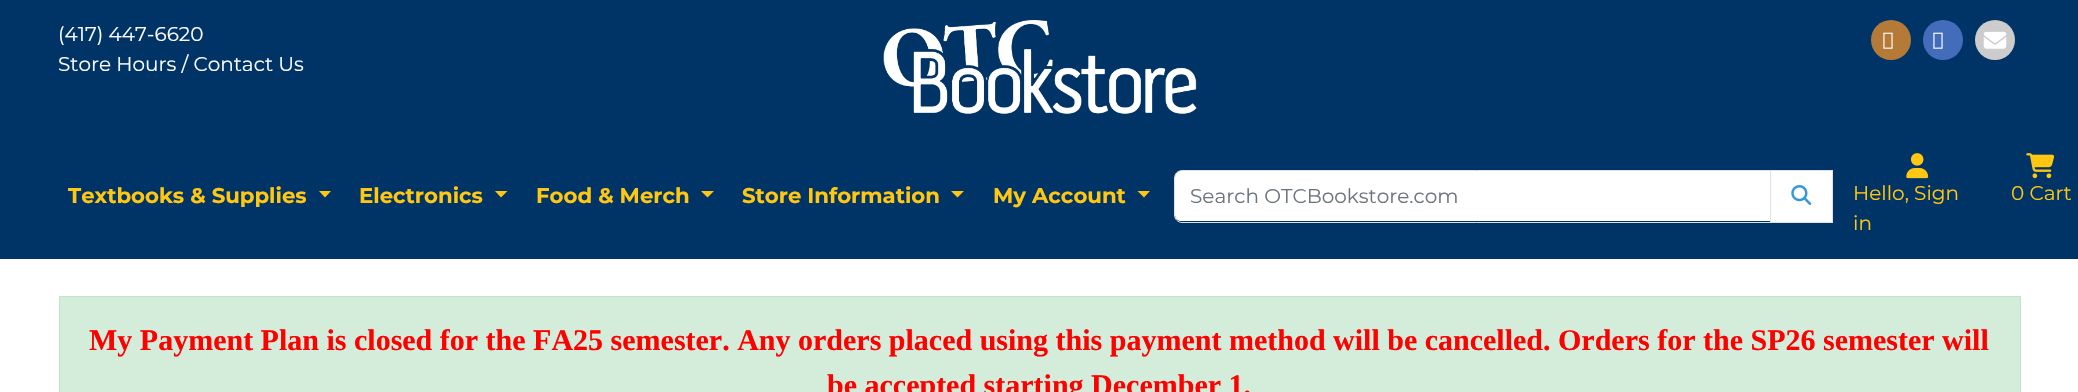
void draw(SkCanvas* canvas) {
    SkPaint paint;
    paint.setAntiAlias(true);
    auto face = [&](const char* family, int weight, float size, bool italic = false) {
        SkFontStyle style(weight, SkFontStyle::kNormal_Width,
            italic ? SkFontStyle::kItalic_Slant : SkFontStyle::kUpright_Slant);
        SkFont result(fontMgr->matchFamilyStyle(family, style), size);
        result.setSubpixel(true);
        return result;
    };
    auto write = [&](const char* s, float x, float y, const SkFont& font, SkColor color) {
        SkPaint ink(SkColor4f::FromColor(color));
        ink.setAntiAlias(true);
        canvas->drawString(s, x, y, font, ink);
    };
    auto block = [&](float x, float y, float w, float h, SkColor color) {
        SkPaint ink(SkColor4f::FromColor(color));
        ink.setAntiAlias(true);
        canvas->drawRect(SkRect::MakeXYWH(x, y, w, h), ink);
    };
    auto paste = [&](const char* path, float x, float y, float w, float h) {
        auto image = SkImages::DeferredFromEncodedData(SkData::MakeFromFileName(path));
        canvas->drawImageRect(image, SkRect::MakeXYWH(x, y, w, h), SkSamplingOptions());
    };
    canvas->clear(SK_ColorWHITE);
    block(0, 0, 2078, 259, SkColorSetRGB(0, 51, 102));
    auto kFont1 = face("Montserrat", 400, 20);
    write("(417) 447-6620", 58, 41, kFont1, SK_ColorWHITE);
    write("Store Hours / Contact Us", 58, 71, kFont1, SK_ColorWHITE);
    paste("pic1.png", 883, 20, 314, 94);
    paint.setColor(SkColorSetRGB(181, 122, 55));
    canvas->drawCircle(1891, 40, 20, paint);
    paste("pic2.png", 1883, 32, 10, 17);
    paint.setColor(SkColorSetRGB(67, 109, 186));
    canvas->drawCircle(1943, 40, 20, paint);
    paste("pic3.png", 1933, 32, 10, 17);
    paint.setColor(SkColorSetRGB(204, 204, 204));
    canvas->drawCircle(1995, 40, 20, paint);
    paste("pic4.png", 1983, 31, 24, 18);
    auto kFont2 = face("Montserrat", 700, 21.25f);
    write("Textbooks & Supplies", 68, 203, kFont2, SkColorSetRGB(255, 199, 17));
    paint.setColor(SkColorSetRGB(255, 199, 17));
    canvas->drawPath(SkPathBuilder().moveTo(319, 191).lineTo(331, 191).lineTo(325, 197.5f).close().detach(), paint);
    write("Electronics", 359, 203, kFont2, SkColorSetRGB(255, 199, 17));
    canvas->drawPath(SkPathBuilder().moveTo(495, 191).lineTo(507.5f, 191).lineTo(501, 197.5f).close().detach(), paint);
    write("Food & Merch", 536, 203, kFont2, SkColorSetRGB(255, 199, 17));
    canvas->drawPath(SkPathBuilder().moveTo(701, 191).lineTo(714, 191).lineTo(707.5f, 197.5f).close().detach(), paint);
    write("Store Information", 742, 203, kFont2, SkColorSetRGB(255, 199, 17));
    canvas->drawPath(SkPathBuilder().moveTo(951, 191).lineTo(964, 191).lineTo(957.5f, 197.5f).close().detach(), paint);
    write("My Account", 993, 203, kFont2, SkColorSetRGB(255, 199, 17));
    canvas->drawPath(SkPathBuilder().moveTo(1137.5f, 191).lineTo(1150, 191).lineTo(1144, 197.5f).close().detach(), paint);
    paint.setColor(SK_ColorWHITE);
    canvas->drawPath(SkPathBuilder().moveTo(1181, 171).lineTo(1770, 171).lineTo(1770, 221).lineTo(1181, 221).cubicTo(1177.5f, 221, 1175, 218.5f, 1175, 215).lineTo(1175, 177).cubicTo(1175, 173.5f, 1177.5f, 171, 1181, 171).close().detach(), paint);
    paint.setStyle(SkPaint::kStroke_Style);
    paint.setStrokeWidth(1);
    paint.setColor(SkColorSetRGB(222, 226, 230));
    canvas->drawPath(SkPathBuilder().moveTo(1182, 170.5f).lineTo(1770.5f, 170.5f).lineTo(1770.5f, 222.5f).lineTo(1182, 222.5f).cubicTo(1178, 222.5f, 1174.5f, 219, 1174.5f, 215).lineTo(1174.5f, 178).cubicTo(1174.5f, 174, 1178, 170.5f, 1182, 170.5f).close().detach(), paint);
    write("Search OTCBookstore.com", 1190, 203, kFont1, SkColorSetRGB(108, 117, 125));
    paint.setStyle(SkPaint::kFill_Style);
    paint.setColor(SK_ColorWHITE);
    canvas->drawRect(SkRect::MakeXYWH(1770.5f, 170.5f, 62, 52), paint);
    paint.setStyle(SkPaint::kStroke_Style);
    paint.setColor(SkColorSetRGB(222, 226, 230));
    canvas->drawRect(SkRect::MakeXYWH(1770.5f, 170.5f, 62, 52), paint);
    paste("pic5.png", 1791, 185, 21, 20);
    paste("pic6.png", 1906, 153, 23, 26);
    write("Hello, Sign", 1853, 200, kFont1, SkColorSetRGB(255, 199, 17));
    write("in", 1853, 230, kFont1, SkColorSetRGB(255, 199, 17));
    paste("pic7.png", 2026, 153, 29, 26);
    write("0 Cart", 2011, 200, kFont1, SkColorSetRGB(255, 199, 17));
    paint.setStyle(SkPaint::kFill_Style);
    paint.setColor(SkColorSetRGB(212, 237, 218));
    canvas->drawRect(SkRect::MakeXYWH(59.5f, 296.5f, 1961, 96), paint);
    paint.setStyle(SkPaint::kStroke_Style);
    paint.setColor(SkColorSetRGB(191, 229, 199));
    canvas->drawRect(SkRect::MakeXYWH(59.5f, 296.5f, 1961, 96), paint);
    auto kFont3 = face("Liberation Serif", 700, 30);
    write("My Payment Plan is closed for the FA25 semester. Any orders placed using this payment method will be cancelled. Orders for the SP26 semester will", 89, 350, kFont3, SkColorSetRGB(255, 0, 0));
    write("be accepted starting December 1.", 827, 395, kFont3, SkColorSetRGB(255, 0, 0));
}
